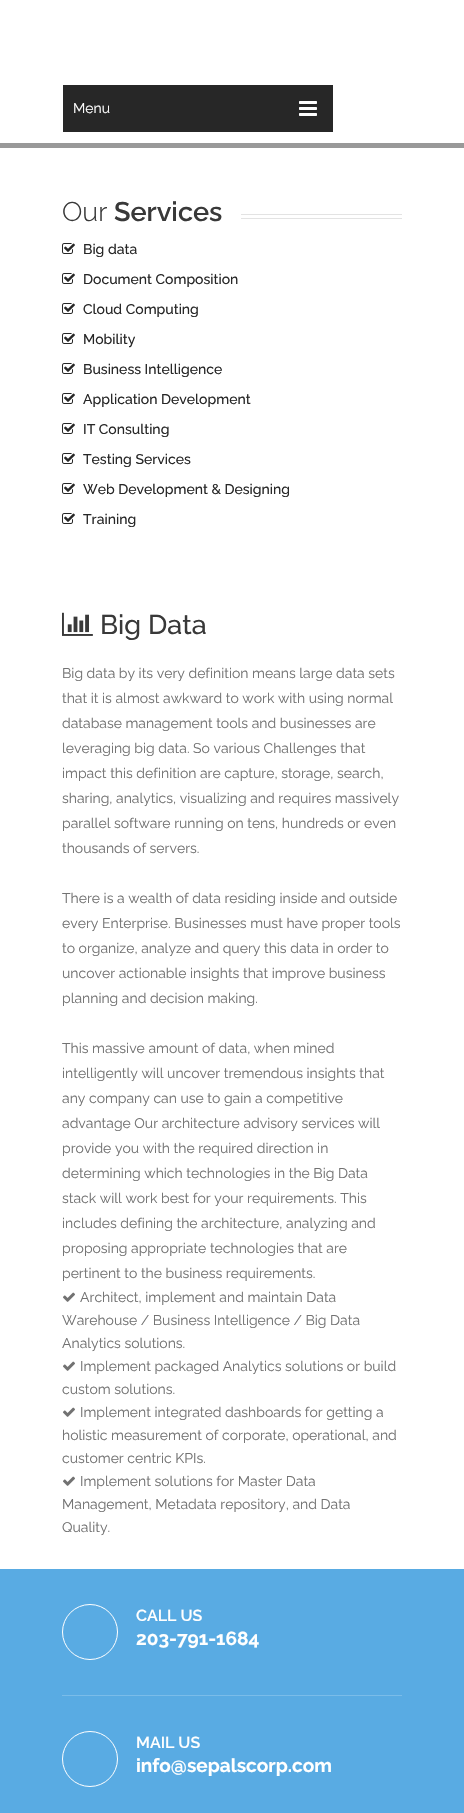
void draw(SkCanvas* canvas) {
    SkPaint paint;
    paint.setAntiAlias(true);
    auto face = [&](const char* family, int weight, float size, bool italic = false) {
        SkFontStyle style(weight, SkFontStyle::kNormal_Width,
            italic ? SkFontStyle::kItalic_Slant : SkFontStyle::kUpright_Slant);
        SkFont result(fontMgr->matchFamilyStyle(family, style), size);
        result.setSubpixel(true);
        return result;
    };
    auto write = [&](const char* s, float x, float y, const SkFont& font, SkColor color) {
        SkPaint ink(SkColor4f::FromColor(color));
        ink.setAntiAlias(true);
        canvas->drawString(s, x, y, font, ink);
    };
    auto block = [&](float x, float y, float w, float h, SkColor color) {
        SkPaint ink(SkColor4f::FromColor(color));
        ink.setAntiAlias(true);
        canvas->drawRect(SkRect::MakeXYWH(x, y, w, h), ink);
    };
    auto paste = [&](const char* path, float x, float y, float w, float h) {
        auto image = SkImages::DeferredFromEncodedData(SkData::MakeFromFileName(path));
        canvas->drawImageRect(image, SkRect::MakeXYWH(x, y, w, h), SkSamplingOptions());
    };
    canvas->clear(SK_ColorWHITE);
    block(63, 85, 270, 47, SkColorSetRGB(39, 39, 39));
    auto kFont1 = face("Raleway", 400, 14);
    write("Menu", 73, 113, kFont1, SK_ColorWHITE);
    paste("pic1.png", 299, 101, 18, 15);
    block(0, 143, 464, 5, SkColorSetRGB(153, 153, 153));
    auto kFont2 = face("Raleway", 300, 27);
    write("Our", 62, 221, kFont2, SkColorSetRGB(57, 57, 57));
    auto kFont3 = face("Raleway", 600, 27);
    write("Services", 114, 221, kFont3, SkColorSetRGB(57, 57, 57));
    block(241, 214, 161, 1, SkColorSetRGB(227, 227, 227));
    block(241, 218, 161, 1, SkColorSetRGB(227, 227, 227));
    paste("pic2.png", 62, 243, 13, 11);
    auto kFont4 = face("Raleway", 500, 14);
    write("Big data", 83, 254, kFont4, SkColorSetRGB(39, 39, 39));
    paste("pic2.png", 62, 273, 13, 11);
    write("Document Composition", 83, 284, kFont4, SkColorSetRGB(39, 39, 39));
    paste("pic2.png", 62, 303, 13, 11);
    write("Cloud Computing", 83, 314, kFont4, SkColorSetRGB(39, 39, 39));
    paste("pic2.png", 62, 333, 13, 11);
    write("Mobility", 83, 344, kFont4, SkColorSetRGB(39, 39, 39));
    paste("pic2.png", 62, 363, 13, 11);
    write("Business Intelligence", 83, 374, kFont4, SkColorSetRGB(39, 39, 39));
    paste("pic2.png", 62, 393, 13, 11);
    write("Application Development", 83, 404, kFont4, SkColorSetRGB(39, 39, 39));
    paste("pic2.png", 62, 423, 13, 11);
    write("IT Consulting", 83, 434, kFont4, SkColorSetRGB(39, 39, 39));
    paste("pic2.png", 62, 453, 13, 11);
    write("Testing Services", 83, 464, kFont4, SkColorSetRGB(39, 39, 39));
    paste("pic2.png", 62, 483, 13, 11);
    write("Web Development & Designing", 83, 494, kFont4, SkColorSetRGB(39, 39, 39));
    paste("pic2.png", 62, 513, 13, 11);
    write("Training", 83, 524, kFont4, SkColorSetRGB(39, 39, 39));
    paste("pic3.png", 62, 612, 31, 24);
    auto kFont5 = face("Raleway", 500, 27);
    write("Big Data", 100, 634, kFont5, SkColorSetRGB(57, 57, 57));
    write("Big data by its very definition means large data sets", 62, 678, kFont1, SkColorSetRGB(114, 114, 114));
    write("that it is almost awkward to work with using normal", 62, 703, kFont1, SkColorSetRGB(114, 114, 114));
    write("database management tools and businesses are", 62, 728, kFont1, SkColorSetRGB(114, 114, 114));
    write("leveraging big data. So various Challenges that", 62, 753, kFont1, SkColorSetRGB(114, 114, 114));
    write("impact this definition are capture, storage, search,", 62, 778, kFont1, SkColorSetRGB(114, 114, 114));
    write("sharing, analytics, visualizing and requires massively", 62, 803, kFont1, SkColorSetRGB(114, 114, 114));
    write("parallel software running on tens, hundreds or even", 62, 828, kFont1, SkColorSetRGB(114, 114, 114));
    write("thousands of servers.", 62, 853, kFont1, SkColorSetRGB(114, 114, 114));
    write("There is a wealth of data residing inside and outside", 62, 903, kFont1, SkColorSetRGB(114, 114, 114));
    write("every Enterprise. Businesses must have proper tools", 62, 928, kFont1, SkColorSetRGB(114, 114, 114));
    write("to organize, analyze and query this data in order to", 62, 953, kFont1, SkColorSetRGB(114, 114, 114));
    write("uncover actionable insights that improve business", 62, 978, kFont1, SkColorSetRGB(114, 114, 114));
    write("planning and decision making.", 62, 1003, kFont1, SkColorSetRGB(114, 114, 114));
    write("This massive amount of data, when mined", 62, 1053, kFont1, SkColorSetRGB(114, 114, 114));
    write("intelligently will uncover tremendous insights that", 62, 1078, kFont1, SkColorSetRGB(114, 114, 114));
    write("any company can use to gain a competitive", 62, 1103, kFont1, SkColorSetRGB(114, 114, 114));
    write("advantage Our architecture advisory services will", 62, 1128, kFont1, SkColorSetRGB(114, 114, 114));
    write("provide you with the required direction in", 62, 1153, kFont1, SkColorSetRGB(114, 114, 114));
    write("determining which technologies in the Big Data", 62, 1178, kFont1, SkColorSetRGB(114, 114, 114));
    write("stack will work best for your requirements. This", 62, 1203, kFont1, SkColorSetRGB(114, 114, 114));
    write("includes defining the architecture, analyzing and", 62, 1228, kFont1, SkColorSetRGB(114, 114, 114));
    write("proposing appropriate technologies that are", 62, 1253, kFont1, SkColorSetRGB(114, 114, 114));
    write("pertinent to the business requirements.", 62, 1278, kFont1, SkColorSetRGB(114, 114, 114));
    paste("pic4.png", 63, 1292, 12, 10);
    write("Architect, implement and maintain Data", 80, 1302, kFont1, SkColorSetRGB(114, 114, 114));
    write("Warehouse / Business Intelligence / Big Data", 62, 1325, kFont1, SkColorSetRGB(114, 114, 114));
    write("Analytics solutions.", 62, 1348, kFont1, SkColorSetRGB(114, 114, 114));
    paste("pic4.png", 63, 1361, 12, 10);
    write("Implement packaged Analytics solutions or build", 80, 1371, kFont1, SkColorSetRGB(114, 114, 114));
    write("custom solutions.", 62, 1394, kFont1, SkColorSetRGB(114, 114, 114));
    paste("pic4.png", 63, 1407, 12, 10);
    write("Implement integrated dashboards for getting a", 80, 1417, kFont1, SkColorSetRGB(114, 114, 114));
    write("holistic measurement of corporate, operational, and", 62, 1440, kFont1, SkColorSetRGB(114, 114, 114));
    write("customer centric KPIs.", 62, 1463, kFont1, SkColorSetRGB(114, 114, 114));
    paste("pic4.png", 63, 1476, 12, 10);
    write("Implement solutions for Master Data", 80, 1486, kFont1, SkColorSetRGB(114, 114, 114));
    write("Management, Metadata repository, and Data", 62, 1509, kFont1, SkColorSetRGB(114, 114, 114));
    write("Quality.", 62, 1532, kFont1, SkColorSetRGB(114, 114, 114));
    block(0, 1569, 464, 244, SkColorSetRGB(89, 171, 227));
    block(62, 1695, 340, 1, SkColorSetRGB(122, 188, 233));
    paint.setStyle(SkPaint::kStroke_Style);
    paint.setStrokeWidth(1);
    paint.setColor(SK_ColorWHITE);
    canvas->drawCircle(90, 1632, 27.5f, paint);
    auto kFont6 = face("Raleway", 600, 16);
    write("CALL US", 136, 1621, kFont6, SK_ColorWHITE);
    auto kFont7 = face("Raleway", 700, 19);
    write("203-791-1684", 136, 1645, kFont7, SK_ColorWHITE);
    canvas->drawCircle(90, 1759, 27.5f, paint);
    write("MAIL US", 136, 1748, kFont6, SK_ColorWHITE);
    write("info@sepalscorp.com", 136, 1772, kFont7, SK_ColorWHITE);
}
